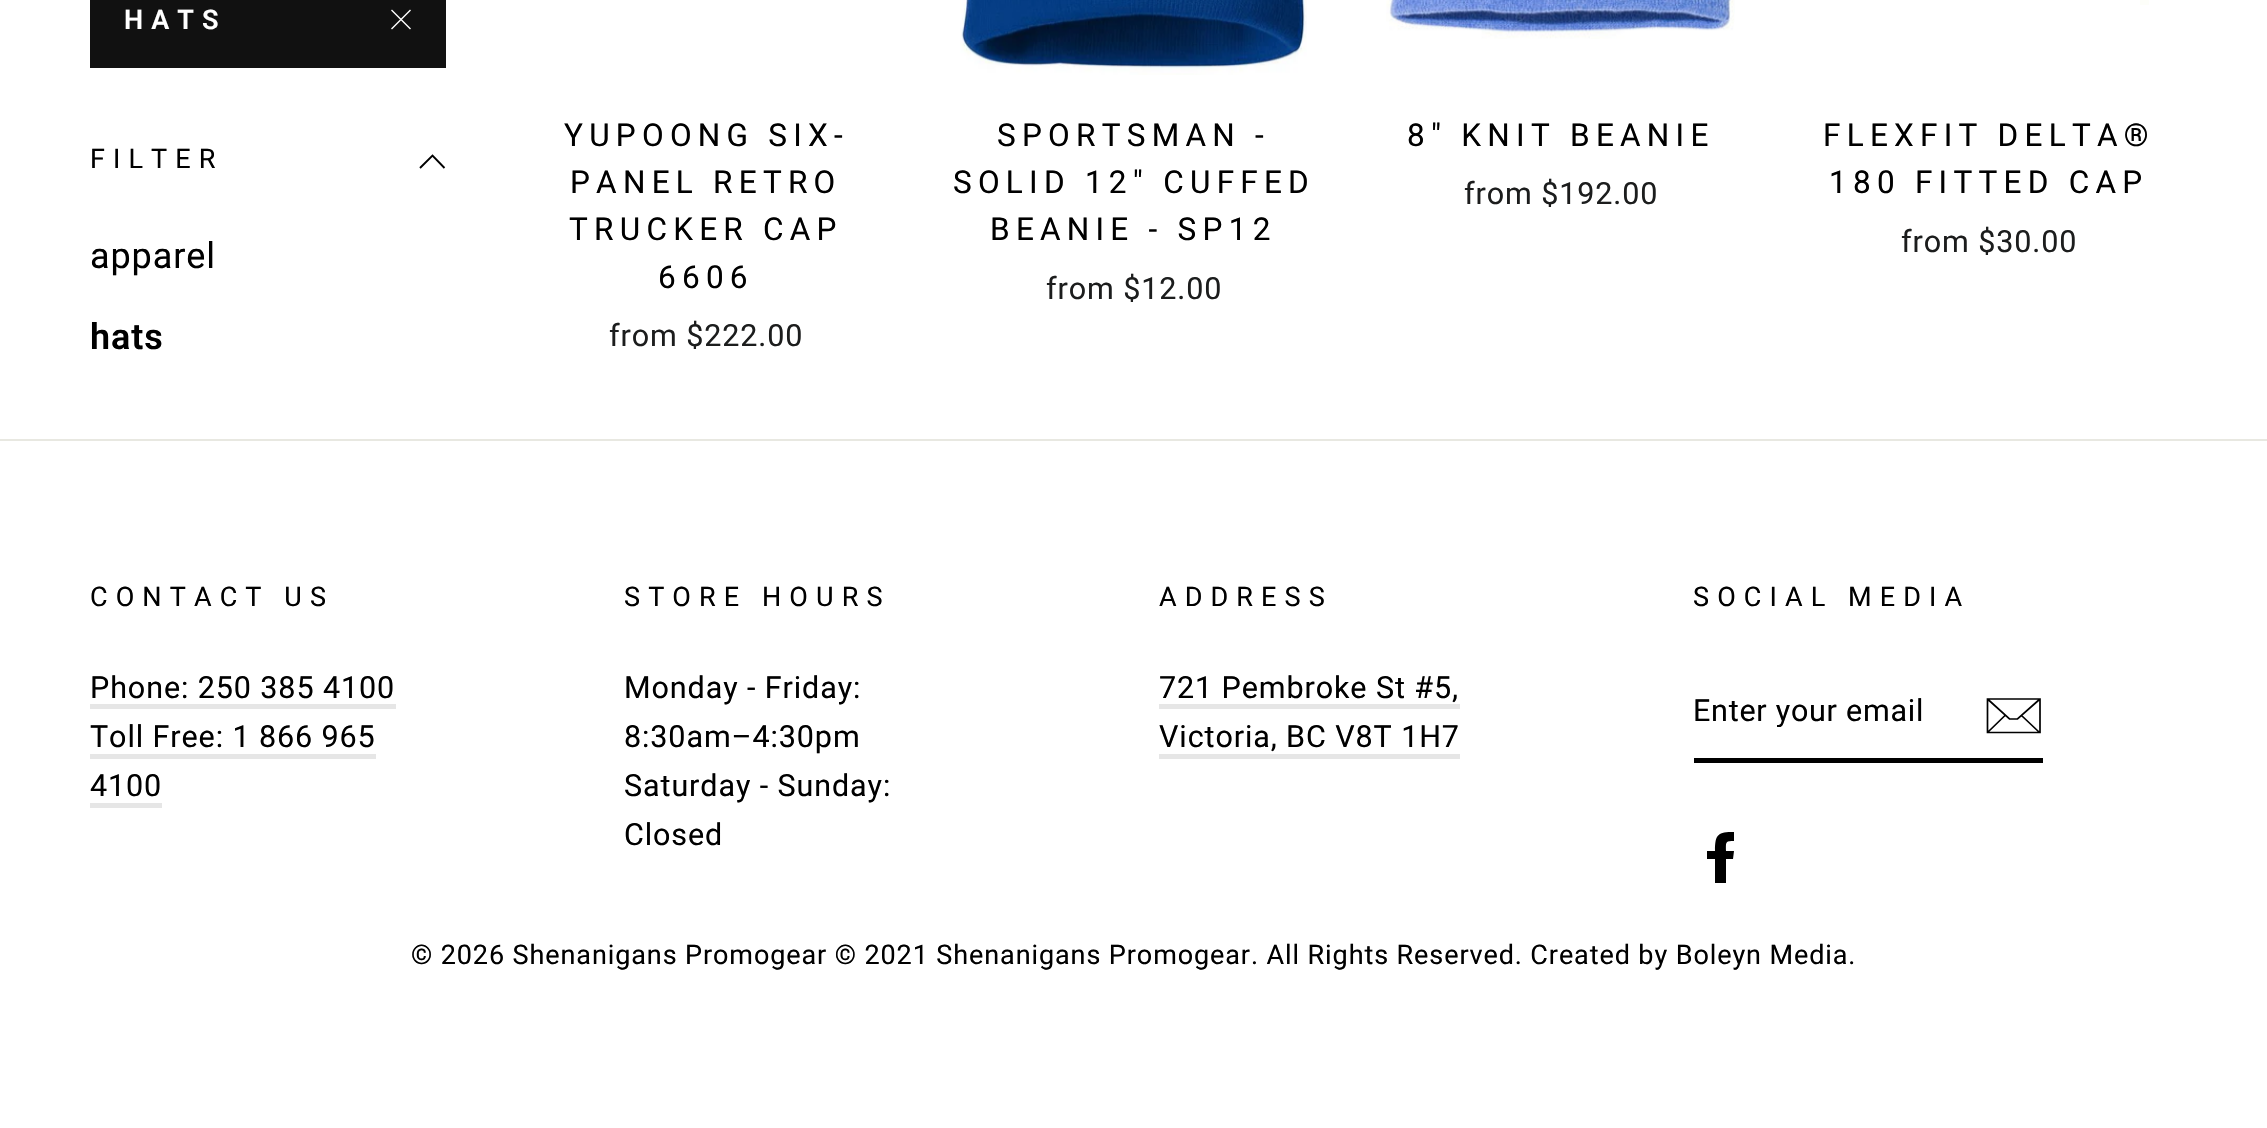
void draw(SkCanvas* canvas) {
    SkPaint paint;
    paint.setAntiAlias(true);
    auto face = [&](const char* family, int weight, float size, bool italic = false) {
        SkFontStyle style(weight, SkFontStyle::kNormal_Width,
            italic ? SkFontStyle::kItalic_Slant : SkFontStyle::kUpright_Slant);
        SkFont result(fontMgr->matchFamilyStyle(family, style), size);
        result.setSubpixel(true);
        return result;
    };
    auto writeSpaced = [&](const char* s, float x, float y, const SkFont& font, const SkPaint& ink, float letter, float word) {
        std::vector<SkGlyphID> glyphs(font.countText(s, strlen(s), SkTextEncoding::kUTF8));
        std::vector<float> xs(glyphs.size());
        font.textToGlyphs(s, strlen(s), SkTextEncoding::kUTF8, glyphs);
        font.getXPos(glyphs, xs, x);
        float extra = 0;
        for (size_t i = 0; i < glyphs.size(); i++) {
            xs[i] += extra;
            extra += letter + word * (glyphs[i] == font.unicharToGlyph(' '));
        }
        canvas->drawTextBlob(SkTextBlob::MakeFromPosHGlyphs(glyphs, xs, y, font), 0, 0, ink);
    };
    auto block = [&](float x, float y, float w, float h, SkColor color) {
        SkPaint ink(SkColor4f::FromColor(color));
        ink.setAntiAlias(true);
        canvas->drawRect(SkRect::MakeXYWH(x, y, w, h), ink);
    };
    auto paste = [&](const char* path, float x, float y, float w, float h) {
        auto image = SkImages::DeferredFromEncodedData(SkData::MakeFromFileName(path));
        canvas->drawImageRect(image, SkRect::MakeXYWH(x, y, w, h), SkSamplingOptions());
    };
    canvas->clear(SK_ColorWHITE);
    block(90, 0, 356, 68, SkColorSetRGB(17, 17, 17));
    auto kFont1 = face("Roboto", 600, 27);
    paint.setColor(SK_ColorWHITE);
    writeSpaced("HATS", 124, 29, kFont1, paint, 8.1f, 0);
    paint.setStyle(SkPaint::kStroke_Style);
    paint.setStrokeWidth(1.4f);
    canvas->drawPath(SkPathBuilder().moveTo(391.5f, 10).lineTo(410.5f, 29).moveTo(410.5f, 10).lineTo(391.5f, 29).detach(), paint);
    auto kFont2 = face("Roboto", 400, 27);
    paint.setStyle(SkPaint::kFill_Style);
    paint.setColor(SK_ColorBLACK);
    writeSpaced("FILTER", 90, 168, kFont2, paint, 8.1f, 0);
    paint.setStyle(SkPaint::kStroke_Style);
    paint.setStrokeWidth(1.9f);
    canvas->drawPath(SkPathBuilder().moveTo(420, 168).lineTo(432.5f, 155.5f).lineTo(444.5f, 168).detach(), paint);
    auto kFont3 = face("Roboto", 400, 36);
    paint.setStyle(SkPaint::kFill_Style);
    writeSpaced("apparel", 90, 268, kFont3, paint, 0.9f, 0);
    auto kFont4 = face("Roboto", 600, 36);
    writeSpaced("hats", 90, 349, kFont4, paint, 0.9f, 0);
    auto kFont5 = face("Roboto", 400, 31.5f);
    writeSpaced("YUPOONG SIX-", 564, 146, kFont5, paint, 6.25f, 0);
    writeSpaced("PANEL RETRO", 570, 193, kFont5, paint, 6.25f, 0);
    writeSpaced("TRUCKER CAP", 569, 240, kFont5, paint, 6.25f, 0);
    writeSpaced("6606", 658, 288, kFont5, paint, 6.25f, 0);
    auto kFont6 = face("Roboto", 400, 30.5f);
    paint.setColor(SkColorSetRGB(28, 29, 29));
    writeSpaced("from $222.00", 609, 346, kFont6, paint, 0.9f, 0);
    paste("pic1.png", 960, 0, 347, 75);
    paint.setColor(SK_ColorBLACK);
    writeSpaced("SPORTSMAN -", 997, 146, kFont5, paint, 6.25f, 0);
    writeSpaced("SOLID 12\" CUFFED", 953, 193, kFont5, paint, 6.25f, 0);
    writeSpaced("BEANIE - SP12", 990, 240, kFont5, paint, 6.25f, 0);
    paint.setColor(SkColorSetRGB(28, 29, 29));
    writeSpaced("from $12.00", 1046, 299, kFont6, paint, 0.9f, 0);
    paste("pic2.png", 1386, 0, 349, 39);
    paint.setColor(SK_ColorBLACK);
    writeSpaced("8\" KNIT BEANIE", 1407, 146, kFont5, paint, 6.25f, 0);
    paint.setColor(SkColorSetRGB(28, 29, 29));
    writeSpaced("from $192.00", 1464, 204, kFont6, paint, 0.9f, 0);
    block(2140, 0, 9, 5, SkColorSetRGB(253, 254, 249));
    paint.setColor(SK_ColorBLACK);
    writeSpaced("FLEXFIT DELTA®", 1823, 146, kFont5, paint, 6.25f, 0);
    writeSpaced("180 FITTED CAP", 1829, 193, kFont5, paint, 6.25f, 0);
    paint.setColor(SkColorSetRGB(28, 29, 29));
    writeSpaced("from $30.00", 1901, 252, kFont6, paint, 0.9f, 0);
    block(0, 439, 2267, 2, SkColorSetRGB(232, 232, 225));
    paint.setColor(SK_ColorBLACK);
    writeSpaced("CONTACT US", 90, 606, kFont2, paint, 8.1f, 0);
    writeSpaced("Phone: 250 385 4100", 90, 698, kFont6, paint, 0.9f, 0);
    block(90, 704, 306, 5, SkColorSetRGB(230, 230, 230));
    writeSpaced("Toll Free: 1 866 965", 90, 747, kFont6, paint, 0.9f, 0);
    block(90, 754, 286, 5, SkColorSetRGB(230, 230, 230));
    writeSpaced("4100", 90, 796, kFont6, paint, 0.9f, 0);
    block(90, 803, 72, 5, SkColorSetRGB(230, 230, 230));
    writeSpaced("STORE HOURS", 624, 606, kFont2, paint, 8.1f, 0);
    writeSpaced("Monday - Friday:", 624, 698, kFont6, paint, 0.9f, 0);
    writeSpaced("8:30am–4:30pm", 624, 747, kFont6, paint, 0.9f, 0);
    writeSpaced("Saturday - Sunday:", 624, 796, kFont6, paint, 0.9f, 0);
    writeSpaced("Closed", 624, 845, kFont6, paint, 0.9f, 0);
    writeSpaced("ADDRESS", 1159, 606, kFont2, paint, 8.1f, 0);
    writeSpaced("721 Pembroke St #5,", 1159, 698, kFont6, paint, 0.9f, 0);
    block(1159, 704, 301, 5, SkColorSetRGB(230, 230, 230));
    writeSpaced("Victoria, BC V8T 1H7", 1159, 747, kFont6, paint, 0.9f, 0);
    block(1159, 754, 301, 5, SkColorSetRGB(230, 230, 230));
    writeSpaced("SOCIAL MEDIA", 1693, 606, kFont2, paint, 8.1f, 0);
    block(1694, 758, 349, 5, SK_ColorBLACK);
    canvas->save();
    canvas->clipRect(SkRect::MakeXYWH(1694, 691, 248, 36));
    writeSpaced("Enter your email", 1693, 721, kFont6, paint, 0.75f, 0);
    canvas->restore();
    paint.setStyle(SkPaint::kStroke_Style);
    paint.setStrokeWidth(1.7f);
    canvas->drawPath(SkPathBuilder().moveTo(2040, 732.5f).lineTo(1987.5f, 732.5f).lineTo(1987.5f, 699).lineTo(2040, 699).close().moveTo(1987.5f, 699).lineTo(2009.5f, 719).lineTo(2017.5f, 719).lineTo(2040, 699).moveTo(2005, 715.5f).lineTo(1988, 732).moveTo(2039.5f, 732.5f).lineTo(2021.5f, 715.5f).detach(), paint);
    paint.setStyle(SkPaint::kFill_Style);
    canvas->drawPath(SkPathBuilder().moveTo(1726, 883).lineTo(1726, 859).lineTo(1733, 859).lineTo(1734, 851).lineTo(1726, 851).cubicTo(1726, 842, 1725, 841, 1734, 841).lineTo(1734, 832).cubicTo(1718, 832, 1715, 834, 1715, 851).lineTo(1707, 851).lineTo(1707, 859).lineTo(1715, 859).lineTo(1715, 883).close().detach(), paint);
    writeSpaced("© 2026 Shenanigans Promogear © 2021 Shenanigans Promogear. All Rights Reserved. Created by Boleyn Media.", 411, 964, kFont2, paint, 0.9f, 0);
}
